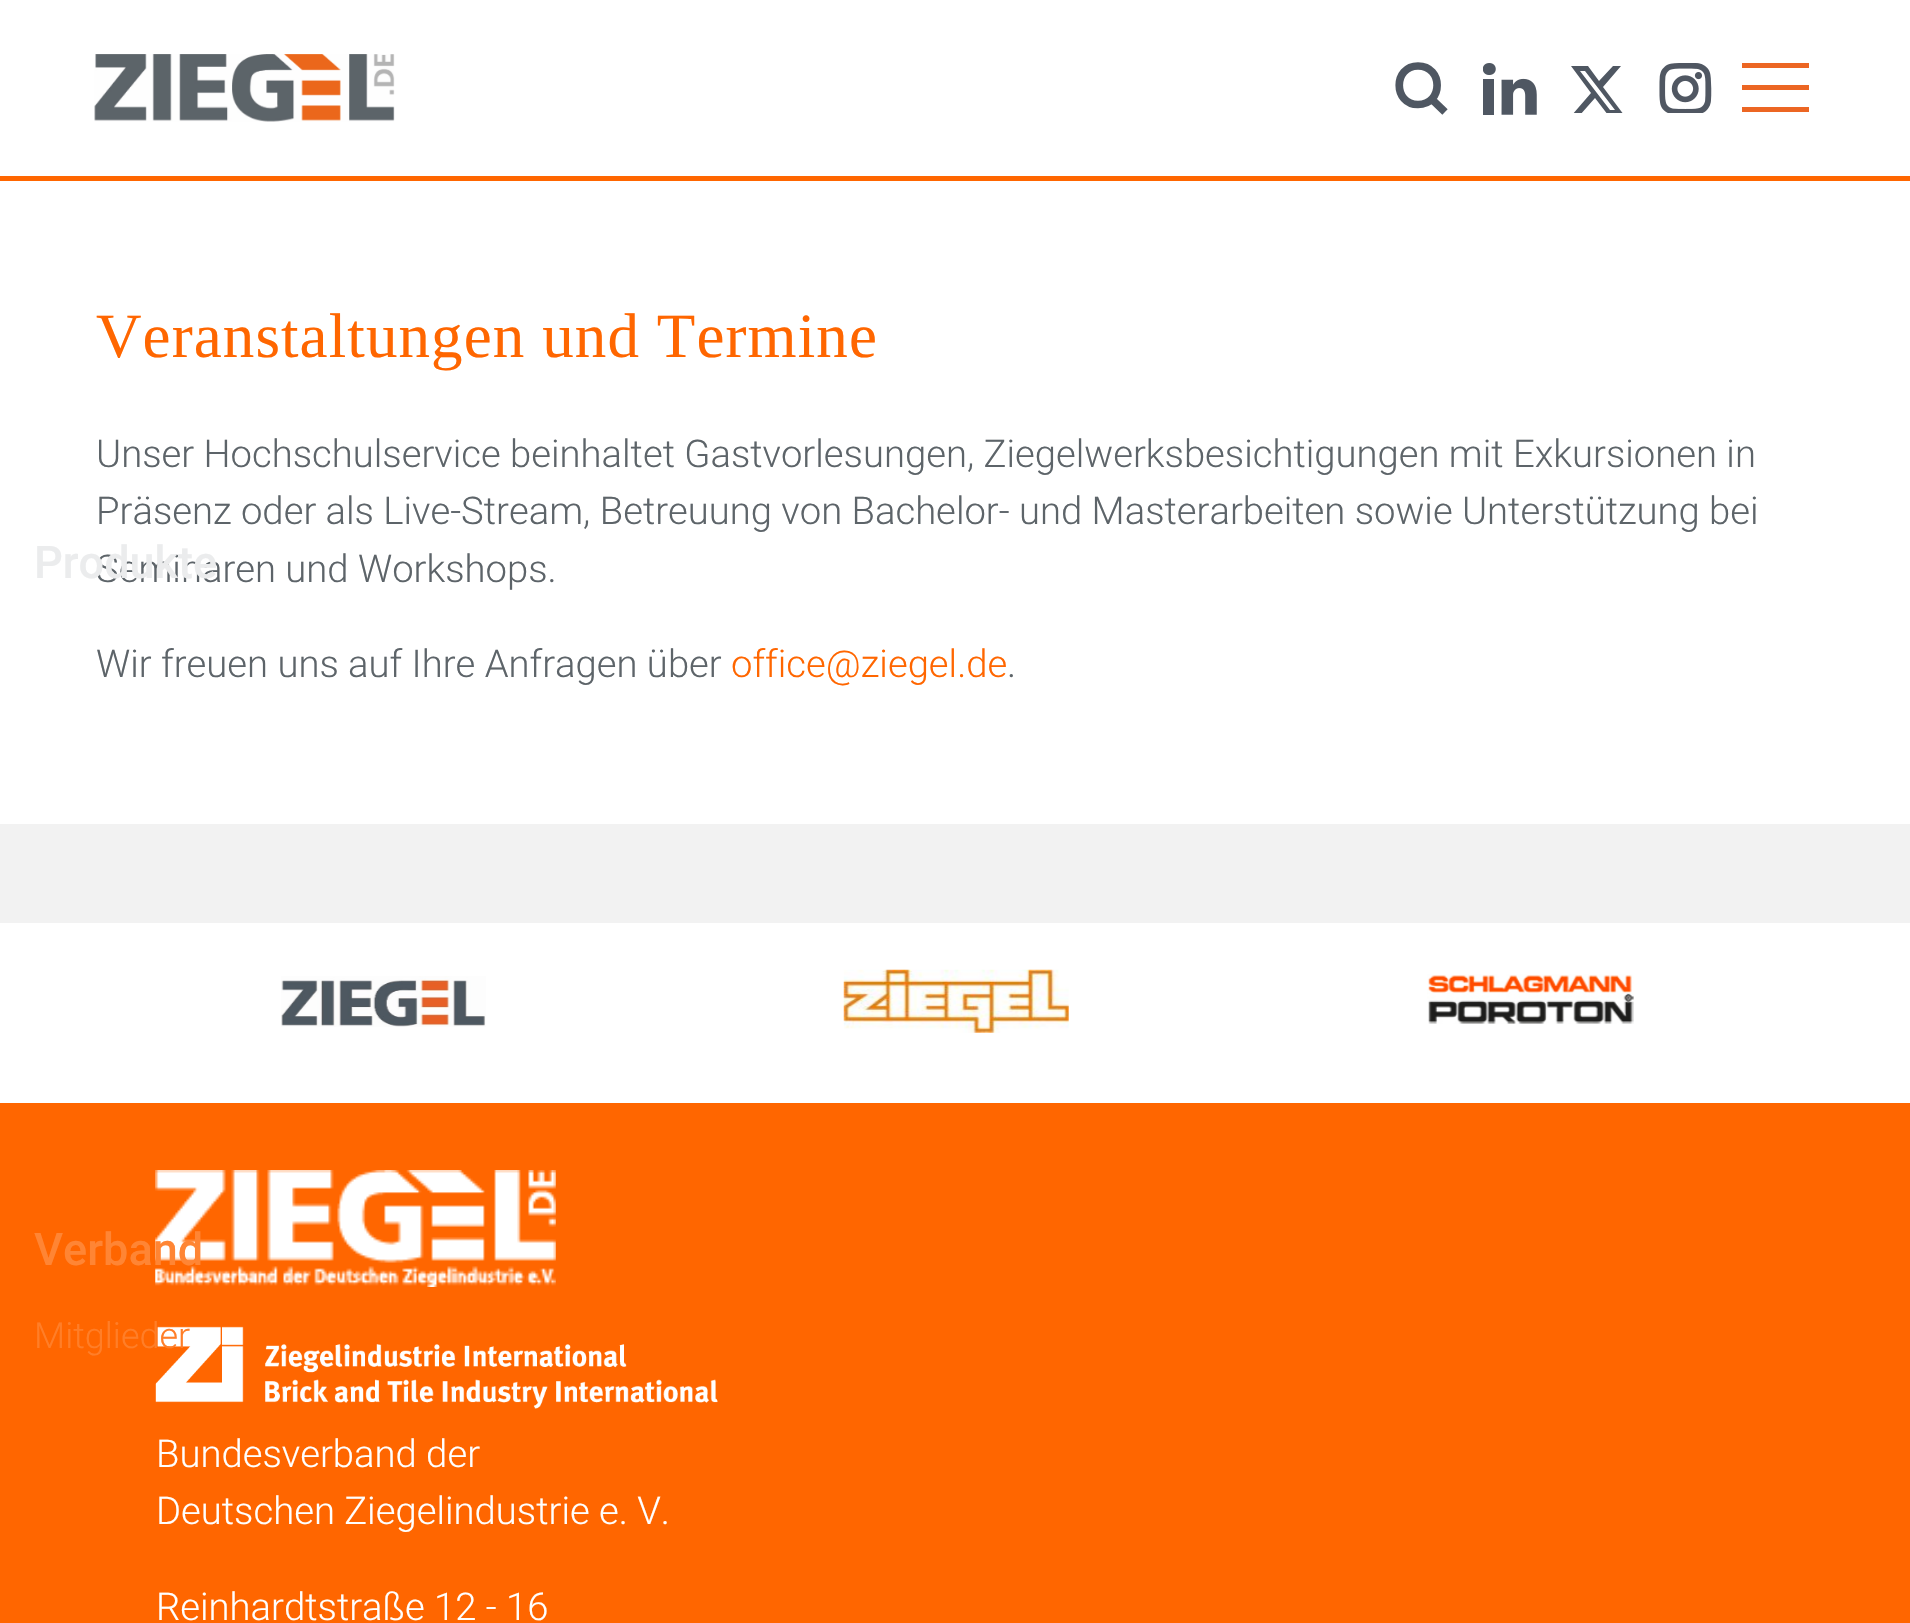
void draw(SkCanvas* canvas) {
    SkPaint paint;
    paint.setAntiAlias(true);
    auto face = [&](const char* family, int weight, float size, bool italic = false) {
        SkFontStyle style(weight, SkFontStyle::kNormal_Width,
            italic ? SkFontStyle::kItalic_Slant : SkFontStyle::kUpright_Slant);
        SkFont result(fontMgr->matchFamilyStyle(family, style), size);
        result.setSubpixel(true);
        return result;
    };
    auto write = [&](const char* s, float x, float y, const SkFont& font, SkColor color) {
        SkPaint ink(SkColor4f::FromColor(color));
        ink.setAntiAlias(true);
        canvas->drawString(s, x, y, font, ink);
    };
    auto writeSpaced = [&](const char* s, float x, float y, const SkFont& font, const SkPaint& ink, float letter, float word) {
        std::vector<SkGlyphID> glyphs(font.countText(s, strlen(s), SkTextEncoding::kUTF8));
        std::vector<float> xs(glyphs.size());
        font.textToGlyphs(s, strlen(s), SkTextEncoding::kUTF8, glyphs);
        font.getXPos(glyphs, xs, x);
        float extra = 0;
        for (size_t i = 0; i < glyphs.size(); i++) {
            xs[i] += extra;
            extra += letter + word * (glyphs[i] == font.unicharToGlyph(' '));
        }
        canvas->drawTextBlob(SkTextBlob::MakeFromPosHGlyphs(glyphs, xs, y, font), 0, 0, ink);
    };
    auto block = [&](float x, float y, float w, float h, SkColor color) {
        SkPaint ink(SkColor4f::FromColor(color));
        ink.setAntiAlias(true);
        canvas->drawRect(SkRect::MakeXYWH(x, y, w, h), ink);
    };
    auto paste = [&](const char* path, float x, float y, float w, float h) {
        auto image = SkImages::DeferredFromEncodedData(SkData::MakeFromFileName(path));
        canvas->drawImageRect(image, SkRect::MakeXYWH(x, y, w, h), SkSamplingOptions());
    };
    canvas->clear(SK_ColorWHITE);
    auto kFont1 = face("Liberation Serif", 400, 63);
    paint.setColor(SkColorSetRGB(255, 102, 0));
    writeSpaced("Veranstaltungen und Termine", 96, 357, kFont1, paint, 1.1f, 0);
    auto kFont2 = face("Roboto", 300, 38.25f);
    write("Unser Hochschulservice beinhaltet Gastvorlesungen, Ziegelwerksbesichtigungen mit Exkursionen in", 96, 467, kFont2, SkColorSetRGB(93, 100, 105));
    write("Präsenz oder als Live-Stream, Betreuung von Bachelor- und Masterarbeiten sowie Unterstützung bei", 96, 524, kFont2, SkColorSetRGB(93, 100, 105));
    write("Seminaren und Workshops.", 96, 582, kFont2, SkColorSetRGB(93, 100, 105));
    write("Wir freuen uns auf Ihre Anfragen über", 96, 677, kFont2, SkColorSetRGB(93, 100, 105));
    write("office@ziegel.de", 731, 677, kFont2, SkColorSetRGB(255, 102, 0));
    write(".", 1007, 677, kFont2, SkColorSetRGB(93, 100, 105));
    block(0, 824, 1910, 99, SkColorSetRGB(242, 242, 242));
    block(0, 176, 1910, 5, SkColorSetRGB(255, 102, 0));
    paste("pic1.png", 94, 54, 301, 68);
    paint.setStyle(SkPaint::kStroke_Style);
    paint.setStrokeWidth(7.7f);
    paint.setColor(SkColorSetRGB(79, 87, 98));
    canvas->drawPath(SkPathBuilder().moveTo(1418, 104.5f).cubicTo(1443.5f, 104.5f, 1443.5f, 66, 1418, 66).cubicTo(1393, 66, 1393, 104.5f, 1418, 104.5f).close().moveTo(1432, 99.5f).lineTo(1445, 112).detach(), paint);
    paste("pic2.png", 1483, 63, 54, 52);
    canvas->save();
    canvas->clipRect(SkRect::MakeXYWH(1571, 63, 54, 50));
    paint.setStyle(SkPaint::kFill_Style);
    canvas->drawPath(SkPathBuilder().moveTo(1613, 66).lineTo(1621, 66).lineTo(1603, 87).lineTo(1624, 115).lineTo(1608, 115).lineTo(1595, 98).lineTo(1580, 115).lineTo(1572, 115).lineTo(1591, 93).lineTo(1571, 66).lineTo(1588, 66).lineTo(1599, 81).close().moveTo(1610, 110).lineTo(1615, 110).lineTo(1585, 71).lineTo(1580, 71).close().detach(), paint);
    canvas->restore();
    paste("pic3.png", 1659, 63, 53, 50);
    block(1742, 63, 67, 5, SkColorSetRGB(236, 102, 35));
    block(1742, 85, 67, 5, SkColorSetRGB(236, 102, 35));
    block(1742, 107, 67, 5, SkColorSetRGB(236, 102, 35));
    auto kFont3 = face("Roboto", 500, 45);
    write("Produkte", 34, 578, kFont3, SkColorSetRGB(235, 236, 237));
    block(0, 1103, 1910, 520, SkColorSetRGB(255, 102, 0));
    paste("pic7.png", 155, 1170, 401, 117);
    write("Verband", 34, 1265, kFont3, SkColorSetRGB(255, 133, 52));
    paste("pic8.png", 155, 1326, 563, 83);
    auto kFont4 = face("Roboto", 300, 36);
    write("Mitglieder", 34, 1348, kFont4, SkColorSetRGB(255, 126, 40));
    paste("pic4.png", 281, 976, 205, 51);
    paste("pic5.png", 843, 969, 226, 64);
    paste("pic6.png", 1427, 974, 207, 50);
    write("Bundesverband der", 156, 1467, kFont2, SK_ColorWHITE);
    write("Deutschen Ziegelindustrie e. V.", 156, 1524, kFont2, SK_ColorWHITE);
    write("Reinhardtstraße 12 - 16", 156, 1620, kFont2, SK_ColorWHITE);
}
